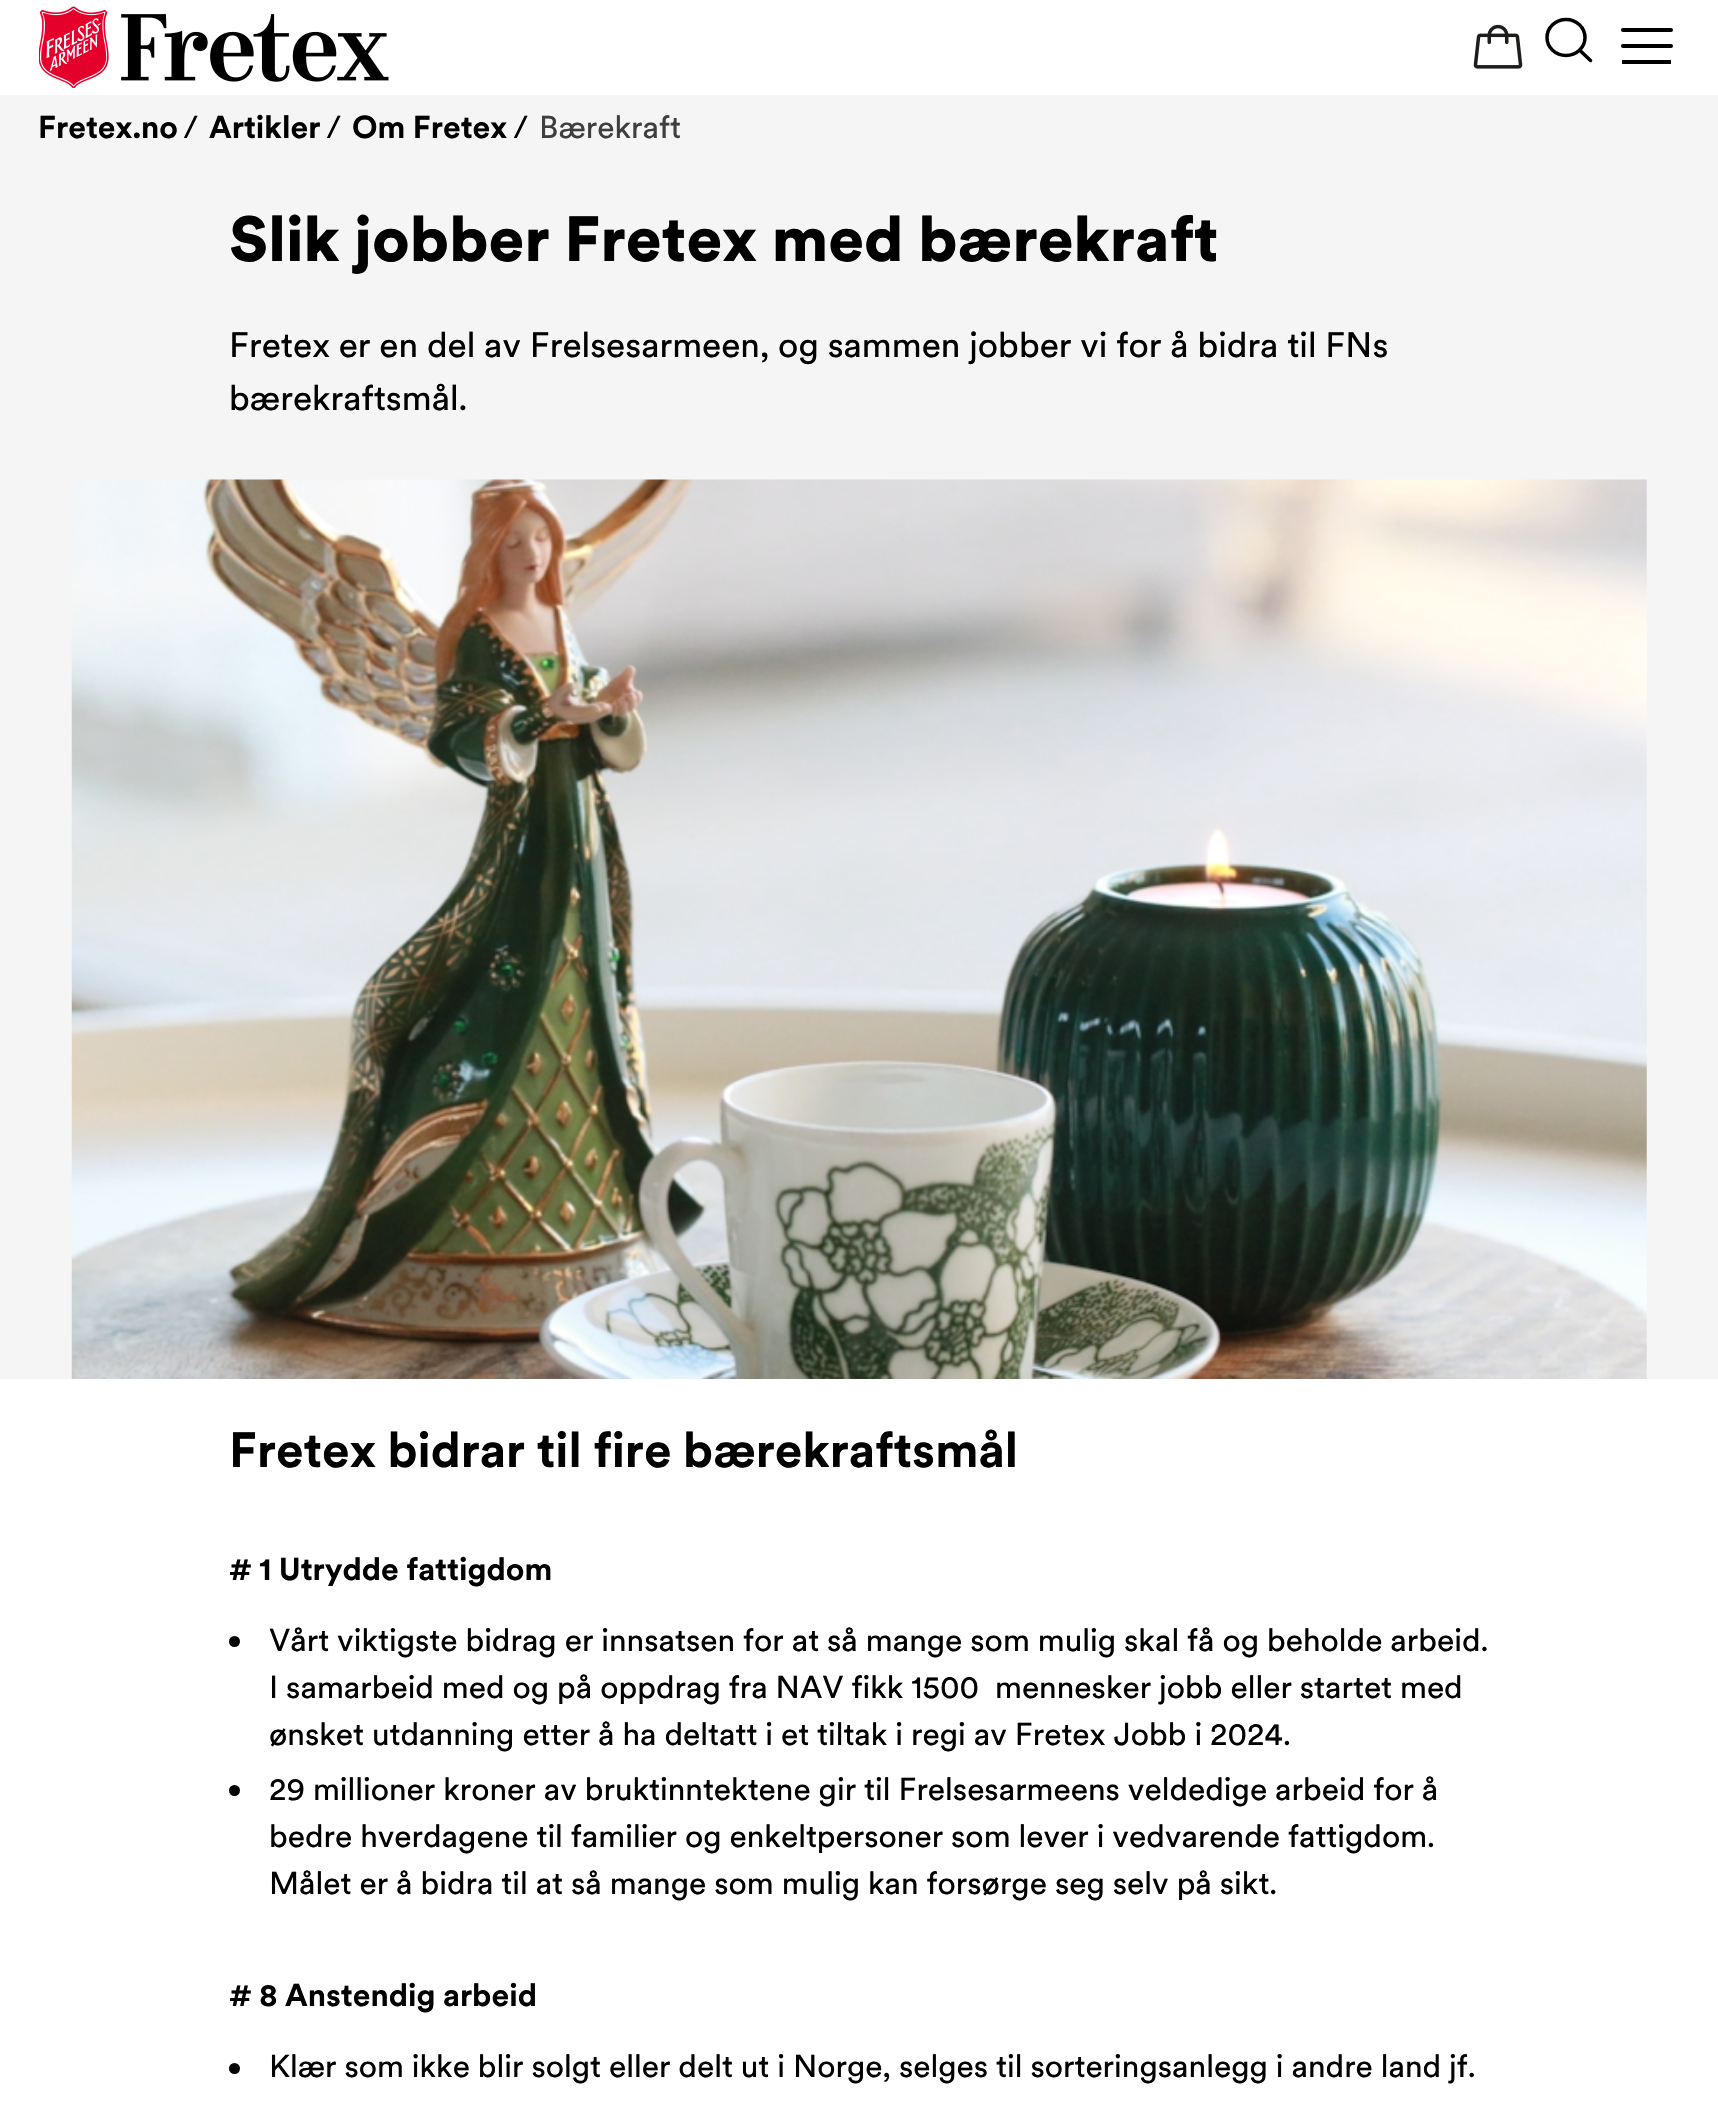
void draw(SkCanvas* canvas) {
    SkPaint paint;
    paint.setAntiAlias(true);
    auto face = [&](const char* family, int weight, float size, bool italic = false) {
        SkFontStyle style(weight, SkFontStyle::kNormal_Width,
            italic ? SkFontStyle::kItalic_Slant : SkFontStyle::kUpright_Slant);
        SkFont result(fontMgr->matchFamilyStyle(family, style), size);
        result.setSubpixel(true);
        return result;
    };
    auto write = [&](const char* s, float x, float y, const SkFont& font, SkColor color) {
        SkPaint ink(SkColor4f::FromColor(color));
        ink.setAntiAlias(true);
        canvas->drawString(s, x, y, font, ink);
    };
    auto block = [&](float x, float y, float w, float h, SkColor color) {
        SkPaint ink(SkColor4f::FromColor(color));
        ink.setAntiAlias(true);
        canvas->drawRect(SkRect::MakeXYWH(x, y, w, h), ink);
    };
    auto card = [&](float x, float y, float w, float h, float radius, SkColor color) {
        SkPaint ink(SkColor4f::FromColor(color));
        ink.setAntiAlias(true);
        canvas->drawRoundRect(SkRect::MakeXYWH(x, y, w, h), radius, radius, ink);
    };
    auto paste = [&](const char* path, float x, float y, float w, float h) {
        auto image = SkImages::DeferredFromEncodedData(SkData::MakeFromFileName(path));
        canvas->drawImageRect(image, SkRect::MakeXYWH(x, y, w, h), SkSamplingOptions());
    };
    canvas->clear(SK_ColorWHITE);
    paste("pic1.png", 39, 6, 350, 82);
    paste("pic2.png", 1473, 24, 50, 45);
    paint.setStyle(SkPaint::kStroke_Style);
    paint.setStrokeWidth(3.5f);
    paint.setStrokeCap(SkPaint::kRound_Cap);
    paint.setStrokeJoin(SkPaint::kRound_Join);
    paint.setColor(SK_ColorBLACK);
    canvas->drawPath(SkPathBuilder().moveTo(1566, 55.5f).cubicTo(1576.5f, 55.5f, 1585, 47.5f, 1585, 37.5f).cubicTo(1585, 27.5f, 1576.5f, 19.5f, 1566, 19.5f).cubicTo(1555.5f, 19.5f, 1547, 27.5f, 1547, 37.5f).cubicTo(1547, 47.5f, 1555.5f, 55.5f, 1566, 55.5f).close().moveTo(1579.5f, 50).lineTo(1590.5f, 60.5f).detach(), paint);
    block(1622, 60, 49, 4, SK_ColorBLACK);
    card(1621, 28, 52, 4, 2, SK_ColorBLACK);
    card(1621, 44, 52, 4, 2, SK_ColorBLACK);
    block(0, 95, 1718, 1284, SkColorSetRGB(245, 245, 245));
    auto kFont1 = face("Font", 700, 31.5f);
    write("Fretex.no", 38, 138, kFont1, SK_ColorBLACK);
    auto kFont2 = face("Font", 400, 31.5f);
    write("/", 183, 138, kFont2, SK_ColorBLACK);
    write("Artikler", 209, 138, kFont1, SK_ColorBLACK);
    write("/", 326, 138, kFont2, SK_ColorBLACK);
    write("Om Fretex", 352, 138, kFont1, SK_ColorBLACK);
    write("/", 513, 138, kFont2, SK_ColorBLACK);
    write("Bærekraft", 539, 138, kFont2, SkColorSetRGB(62, 62, 62));
    auto kFont3 = face("Font", 900, 63);
    write("Slik jobber Fretex med bærekraft", 229, 261, kFont3, SK_ColorBLACK);
    auto kFont4 = face("Font", 400, 35);
    write("Fretex er en del av Frelsesarmeen, og sammen jobber vi for å bidra til FNs", 229, 357, kFont4, SK_ColorBLACK);
    write("bærekraftsmål.", 229, 410, kFont4, SK_ColorBLACK);
    paste("pic3.png", 71, 479, 1576, 900);
    auto kFont5 = face("Font", 700, 49);
    write("Fretex bidrar til fire bærekraftsmål", 229, 1467, kFont5, SK_ColorBLACK);
    write("# 1 Utrydde fattigdom", 229, 1580, kFont1, SK_ColorBLACK);
    paint.setStyle(SkPaint::kFill_Style);
    canvas->drawCircle(234.5f, 1641.5f, 5.5f, paint);
    write("Vårt viktigste bidrag er innsatsen for at så mange som mulig skal få og beholde arbeid.", 269, 1651, kFont2, SK_ColorBLACK);
    write("I samarbeid med og på oppdrag fra NAV fikk 1500  mennesker jobb eller startet med", 269, 1698, kFont2, SK_ColorBLACK);
    write("ønsket utdanning etter å ha deltatt i et tiltak i regi av Fretex Jobb i 2024.", 269, 1745, kFont2, SK_ColorBLACK);
    canvas->drawCircle(234.5f, 1790.5f, 5.5f, paint);
    write("29 millioner kroner av bruktinntektene gir til Frelsesarmeens veldedige arbeid for å", 269, 1800, kFont2, SK_ColorBLACK);
    write("bedre hverdagene til familier og enkeltpersoner som lever i vedvarende fattigdom.", 269, 1847, kFont2, SK_ColorBLACK);
    write("Målet er å bidra til at så mange som mulig kan forsørge seg selv på sikt.", 269, 1894, kFont2, SK_ColorBLACK);
    write("# 8 Anstendig arbeid", 229, 2006, kFont1, SK_ColorBLACK);
    canvas->drawCircle(234.5f, 2068.5f, 5.5f, paint);
    write("Klær som ikke blir solgt eller delt ut i Norge, selges til sorteringsanlegg i andre land jf.", 269, 2077, kFont2, SK_ColorBLACK);
}
